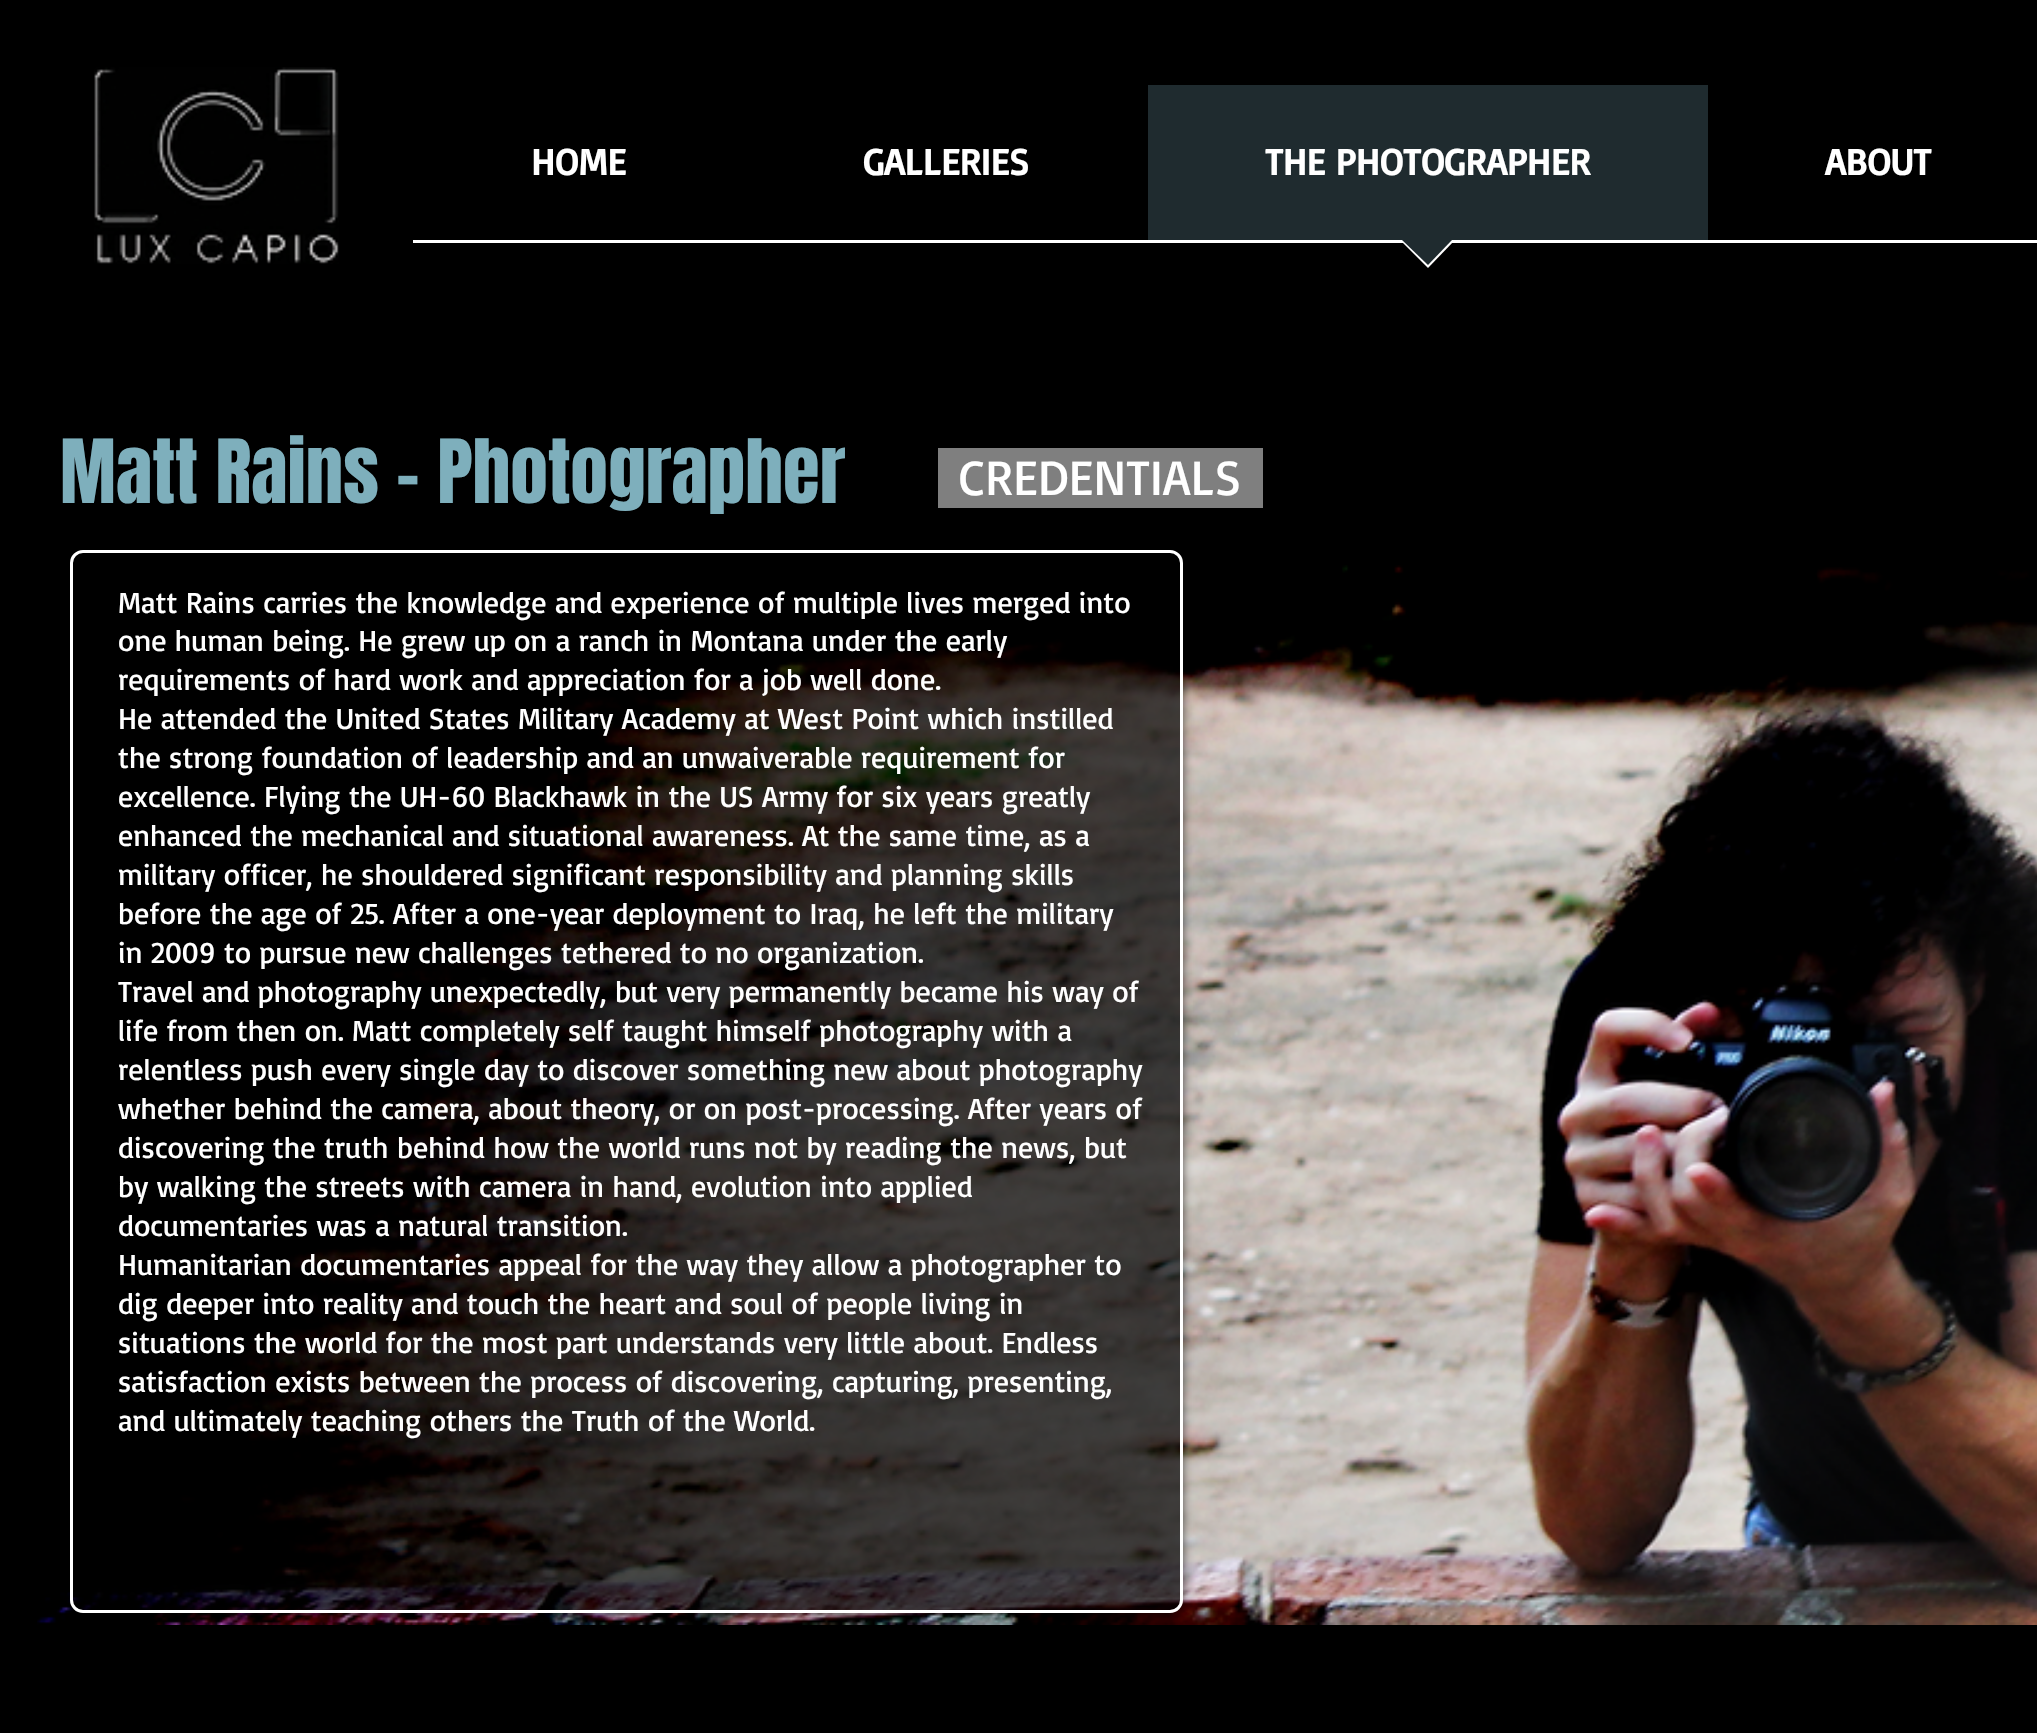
void draw(SkCanvas* canvas) {
    SkPaint paint;
    paint.setAntiAlias(true);
    auto face = [&](const char* family, int weight, float size, bool italic = false) {
        SkFontStyle style(weight, SkFontStyle::kNormal_Width,
            italic ? SkFontStyle::kItalic_Slant : SkFontStyle::kUpright_Slant);
        SkFont result(fontMgr->matchFamilyStyle(family, style), size);
        result.setSubpixel(true);
        return result;
    };
    auto write = [&](const char* s, float x, float y, const SkFont& font, SkColor color) {
        SkPaint ink(SkColor4f::FromColor(color));
        ink.setAntiAlias(true);
        canvas->drawString(s, x, y, font, ink);
    };
    auto block = [&](float x, float y, float w, float h, SkColor color) {
        SkPaint ink(SkColor4f::FromColor(color));
        ink.setAntiAlias(true);
        canvas->drawRect(SkRect::MakeXYWH(x, y, w, h), ink);
    };
    auto paste = [&](const char* path, float x, float y, float w, float h) {
        auto image = SkImages::DeferredFromEncodedData(SkData::MakeFromFileName(path));
        canvas->drawImageRect(image, SkRect::MakeXYWH(x, y, w, h), SkSamplingOptions());
    };
    canvas->clear(SK_ColorBLACK);
    paste("pic1.png", 94, 67, 245, 197);
    auto kFont1 = face("Basic", 700, 37.5f);
    write("HOME", 531, 175, kFont1, SK_ColorWHITE);
    write("GALLERIES", 863, 175, kFont1, SK_ColorWHITE);
    block(1148, 85, 560, 155, SkColorSetRGB(31, 43, 47));
    write("THE PHOTOGRAPHER", 1265, 175, kFont1, SK_ColorWHITE);
    block(413, 240, 1624, 3, SK_ColorWHITE);
    paint.setColor(SK_ColorWHITE);
    canvas->drawPath(SkPathBuilder().moveTo(1400, 240).lineTo(1455, 240).lineTo(1428, 268).close().detach(), paint);
    paint.setColor(SkColorSetRGB(31, 43, 47));
    canvas->drawPath(SkPathBuilder().moveTo(1402, 240).lineTo(1452, 240).lineTo(1428, 265).close().detach(), paint);
    write("ABOUT", 1825, 175, kFont1, SK_ColorWHITE);
    auto kFont2 = face("Anton", 400, 75);
    write("Matt Rains - Photographer", 60, 503, kFont2, SkColorSetRGB(126, 175, 188));
    block(938, 448, 325, 60, SkColorSetRGB(127, 127, 127));
    auto kFont3 = face("Basic", 400, 50);
    write("CREDENTIALS", 959, 495, kFont3, SK_ColorWHITE);
    paste("pic2.png", 37, 565, 2000, 1060);
    canvas->save();
    canvas->clipPath(SkPathBuilder(SkPathFillType::kEvenOdd).moveTo(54, 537).lineTo(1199, 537).lineTo(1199, 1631).lineTo(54, 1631).close().moveTo(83, 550).lineTo(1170, 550).cubicTo(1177, 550, 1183, 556, 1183, 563).lineTo(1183, 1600).cubicTo(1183, 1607, 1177, 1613, 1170, 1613).lineTo(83, 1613).cubicTo(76, 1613, 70, 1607, 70, 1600).lineTo(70, 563).cubicTo(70, 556, 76, 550, 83, 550).close().detach(), true);
    paint.setColor(SkColorSetARGB(153, 0, 0, 0));
    paint.setMaskFilter(SkMaskFilter::MakeBlur(kNormal_SkBlurStyle, 5));
    canvas->drawRoundRect(SkRect::MakeXYWH(70, 553, 1113, 1062), 13, 13, paint);
    paint.setMaskFilter(nullptr);
    canvas->restore();
    paint.setColor(SkColorSetARGB(179, 0, 0, 0));
    canvas->drawRoundRect(SkRect::MakeXYWH(71.5f, 551.5f, 1110, 1060), 11.5f, 11.5f, paint);
    paint.setStyle(SkPaint::kStroke_Style);
    paint.setStrokeWidth(3);
    paint.setColor(SK_ColorWHITE);
    canvas->drawRoundRect(SkRect::MakeXYWH(71.5f, 551.5f, 1110, 1060), 11.5f, 11.5f, paint);
    auto kFont4 = face("Basic", 400, 30);
    write("Matt Rains carries the knowledge and experience of multiple lives merged into", 118, 613, kFont4, SK_ColorWHITE);
    write("one human being. He grew up on a ranch in Montana under the early", 118, 651, kFont4, SK_ColorWHITE);
    write("requirements of hard work and appreciation for a job well done.", 118, 690, kFont4, SK_ColorWHITE);
    write("He attended the United States Military Academy at West Point which instilled", 118, 729, kFont4, SK_ColorWHITE);
    write("the strong foundation of leadership and an unwaiverable requirement for", 118, 768, kFont4, SK_ColorWHITE);
    write("excellence. Flying the UH-60 Blackhawk in the US Army for six years greatly", 118, 807, kFont4, SK_ColorWHITE);
    write("enhanced the mechanical and situational awareness. At the same time, as a", 118, 846, kFont4, SK_ColorWHITE);
    write("military officer, he shouldered significant responsibility and planning skills", 118, 885, kFont4, SK_ColorWHITE);
    write("before the age of 25. After a one-year deployment to Iraq, he left the military", 118, 924, kFont4, SK_ColorWHITE);
    write("in 2009 to pursue new challenges tethered to no organization.", 118, 963, kFont4, SK_ColorWHITE);
    write("Travel and photography unexpectedly, but very permanently became his way of", 118, 1002, kFont4, SK_ColorWHITE);
    write("life from then on. Matt completely self taught himself photography with a", 118, 1041, kFont4, SK_ColorWHITE);
    write("relentless push every single day to discover something new about photography", 118, 1080, kFont4, SK_ColorWHITE);
    write("whether behind the camera, about theory, or on post-processing. After years of", 118, 1119, kFont4, SK_ColorWHITE);
    write("discovering the truth behind how the world runs not by reading the news, but", 118, 1158, kFont4, SK_ColorWHITE);
    write("by walking the streets with camera in hand, evolution into applied", 118, 1197, kFont4, SK_ColorWHITE);
    write("documentaries was a natural transition.", 118, 1236, kFont4, SK_ColorWHITE);
    write("Humanitarian documentaries appeal for the way they allow a photographer to", 118, 1275, kFont4, SK_ColorWHITE);
    write("dig deeper into reality and touch the heart and soul of people living in", 118, 1314, kFont4, SK_ColorWHITE);
    write("situations the world for the most part understands very little about. Endless", 118, 1353, kFont4, SK_ColorWHITE);
    write("satisfaction exists between the process of discovering, capturing, presenting,", 118, 1392, kFont4, SK_ColorWHITE);
    write("and ultimately teaching others the Truth of the World.", 118, 1431, kFont4, SK_ColorWHITE);
}
